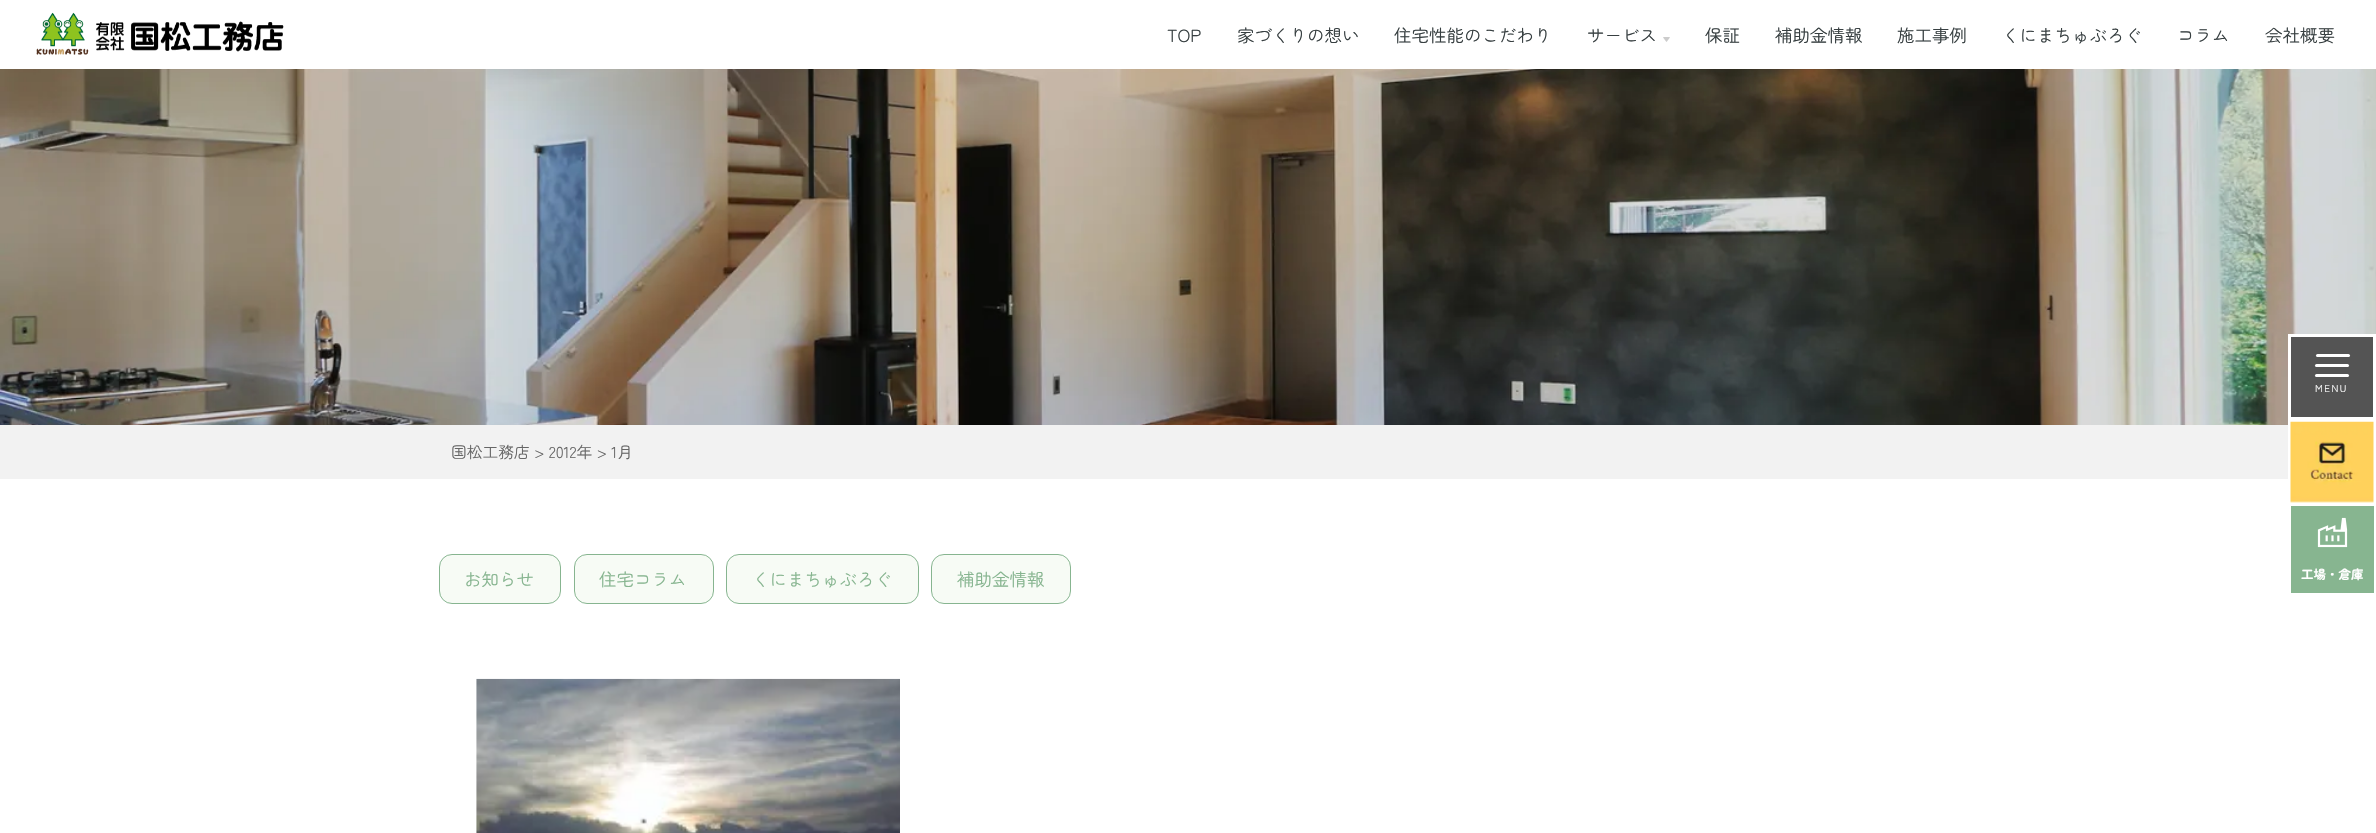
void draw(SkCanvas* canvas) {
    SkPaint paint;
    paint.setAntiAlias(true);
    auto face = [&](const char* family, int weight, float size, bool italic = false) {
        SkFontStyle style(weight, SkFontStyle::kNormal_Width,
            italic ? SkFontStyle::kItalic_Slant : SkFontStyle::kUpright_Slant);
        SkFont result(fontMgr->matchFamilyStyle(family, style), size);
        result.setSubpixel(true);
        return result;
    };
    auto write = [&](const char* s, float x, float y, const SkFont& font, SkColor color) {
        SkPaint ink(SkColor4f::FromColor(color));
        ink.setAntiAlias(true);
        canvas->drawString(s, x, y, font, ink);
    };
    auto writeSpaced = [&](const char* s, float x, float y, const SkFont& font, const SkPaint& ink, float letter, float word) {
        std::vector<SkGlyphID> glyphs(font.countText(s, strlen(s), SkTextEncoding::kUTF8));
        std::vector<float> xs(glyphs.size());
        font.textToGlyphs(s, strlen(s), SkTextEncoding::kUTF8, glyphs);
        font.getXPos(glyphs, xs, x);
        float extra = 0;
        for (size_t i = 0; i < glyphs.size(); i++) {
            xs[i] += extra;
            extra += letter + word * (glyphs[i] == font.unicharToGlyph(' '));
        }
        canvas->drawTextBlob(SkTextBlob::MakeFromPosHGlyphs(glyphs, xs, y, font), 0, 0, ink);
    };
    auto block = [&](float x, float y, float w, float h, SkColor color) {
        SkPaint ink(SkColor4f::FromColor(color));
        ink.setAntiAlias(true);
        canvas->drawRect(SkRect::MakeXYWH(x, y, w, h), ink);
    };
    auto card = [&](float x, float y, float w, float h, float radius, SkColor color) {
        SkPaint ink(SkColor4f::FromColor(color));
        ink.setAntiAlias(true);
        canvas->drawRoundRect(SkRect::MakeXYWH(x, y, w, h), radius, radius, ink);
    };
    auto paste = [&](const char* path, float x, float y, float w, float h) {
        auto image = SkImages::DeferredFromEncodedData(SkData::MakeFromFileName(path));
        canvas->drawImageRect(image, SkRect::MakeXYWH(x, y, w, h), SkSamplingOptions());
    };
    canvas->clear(SK_ColorWHITE);
    paste("pic1.png", 36, 12, 248, 43);
    auto kFont1 = face("Zen Maru Gothic", 400, 17.5f);
    write("TOP", 1167, 42, kFont1, SkColorSetRGB(55, 63, 65));
    write("家づくりの想い", 1237, 42, kFont1, SkColorSetRGB(55, 63, 65));
    write("住宅性能のこだわり", 1394, 42, kFont1, SkColorSetRGB(55, 63, 65));
    write("サービス", 1587, 42, kFont1, SkColorSetRGB(55, 63, 65));
    auto kFont2 = face("Zen Maru Gothic", 400, 7);
    write("▼", 1663, 42, kFont2, SkColorSetRGB(204, 204, 204));
    write("保証", 1705, 42, kFont1, SkColorSetRGB(55, 63, 65));
    write("補助金情報", 1775, 42, kFont1, SkColorSetRGB(55, 63, 65));
    write("施工事例", 1897, 42, kFont1, SkColorSetRGB(55, 63, 65));
    write("くにまちゅぶろぐ", 2002, 42, kFont1, SkColorSetRGB(55, 63, 65));
    write("コラム", 2177, 42, kFont1, SkColorSetRGB(55, 63, 65));
    write("会社概要", 2265, 42, kFont1, SkColorSetRGB(55, 63, 65));
    paste("pic2.png", 0, 69, 2376, 356);
    block(0, 425, 2288, 54, SkColorSetRGB(242, 242, 242));
    auto kFont3 = face("Zen Maru Gothic", 400, 15.75f);
    write("国松工務店 > 2012年 > 1月", 451, 458, kFont3, SkColorSetRGB(102, 102, 102));
    paint.setStyle(SkPaint::kStroke_Style);
    paint.setStrokeWidth(3);
    paint.setColor(SK_ColorWHITE);
    canvas->drawRect(SkRect::MakeXYWH(2289.5f, 420.5f, 85, 83), paint);
    paint.setStyle(SkPaint::kFill_Style);
    paint.setColor(SkColorSetRGB(84, 84, 84));
    canvas->drawRect(SkRect::MakeXYWH(2289.5f, 335.5f, 85, 83), paint);
    paint.setStyle(SkPaint::kStroke_Style);
    paint.setColor(SK_ColorWHITE);
    canvas->drawRect(SkRect::MakeXYWH(2289.5f, 335.5f, 85, 83), paint);
    card(2316, 354, 34, 3, 1.5f, SK_ColorWHITE);
    card(2315, 364, 34, 3, 1.5f, SK_ColorWHITE);
    card(2315, 374, 34, 3, 1.5f, SK_ColorWHITE);
    auto kFont4 = face("Zen Maru Gothic", 400, 10);
    paint.setStyle(SkPaint::kFill_Style);
    writeSpaced("MENU", 2315, 392, kFont4, paint, 1.5f, 0);
    paste("pic3.png", 2290, 421, 84, 82);
    block(2291, 506, 83, 87, SkColorSetRGB(135, 181, 144));
    paste("pic4.png", 2317, 517, 31, 31);
    auto kFont5 = face("Zen Maru Gothic", 700, 12.5f);
    write("工場・倉庫", 2301, 579, kFont5, SK_ColorWHITE);
    paint.setColor(SkColorSetRGB(247, 251, 245));
    canvas->drawRoundRect(SkRect::MakeXYWH(439.5f, 554.5f, 121, 49), 12.5f, 12.5f, paint);
    paint.setStyle(SkPaint::kStroke_Style);
    paint.setStrokeWidth(1);
    paint.setColor(SkColorSetRGB(135, 181, 144));
    canvas->drawRoundRect(SkRect::MakeXYWH(439.5f, 554.5f, 121, 49), 12.5f, 12.5f, paint);
    write("お知らせ", 464, 586, kFont1, SkColorSetRGB(135, 181, 144));
    paint.setStyle(SkPaint::kFill_Style);
    paint.setColor(SkColorSetRGB(247, 251, 245));
    canvas->drawRoundRect(SkRect::MakeXYWH(574.5f, 554.5f, 139, 49), 12.5f, 12.5f, paint);
    paint.setStyle(SkPaint::kStroke_Style);
    paint.setColor(SkColorSetRGB(135, 181, 144));
    canvas->drawRoundRect(SkRect::MakeXYWH(574.5f, 554.5f, 139, 49), 12.5f, 12.5f, paint);
    write("住宅コラム", 599, 586, kFont1, SkColorSetRGB(135, 181, 144));
    paint.setStyle(SkPaint::kFill_Style);
    paint.setColor(SkColorSetRGB(247, 251, 245));
    canvas->drawRoundRect(SkRect::MakeXYWH(726.5f, 554.5f, 192, 49), 12.5f, 12.5f, paint);
    paint.setStyle(SkPaint::kStroke_Style);
    paint.setColor(SkColorSetRGB(135, 181, 144));
    canvas->drawRoundRect(SkRect::MakeXYWH(726.5f, 554.5f, 192, 49), 12.5f, 12.5f, paint);
    write("くにまちゅぶろぐ", 752, 586, kFont1, SkColorSetRGB(135, 181, 144));
    paint.setStyle(SkPaint::kFill_Style);
    paint.setColor(SkColorSetRGB(247, 251, 245));
    canvas->drawRoundRect(SkRect::MakeXYWH(931.5f, 554.5f, 139, 49), 12.5f, 12.5f, paint);
    paint.setStyle(SkPaint::kStroke_Style);
    paint.setColor(SkColorSetRGB(135, 181, 144));
    canvas->drawRoundRect(SkRect::MakeXYWH(931.5f, 554.5f, 139, 49), 12.5f, 12.5f, paint);
    write("補助金情報", 957, 586, kFont1, SkColorSetRGB(135, 181, 144));
    paste("pic5.png", 476, 678, 424, 155);
}
